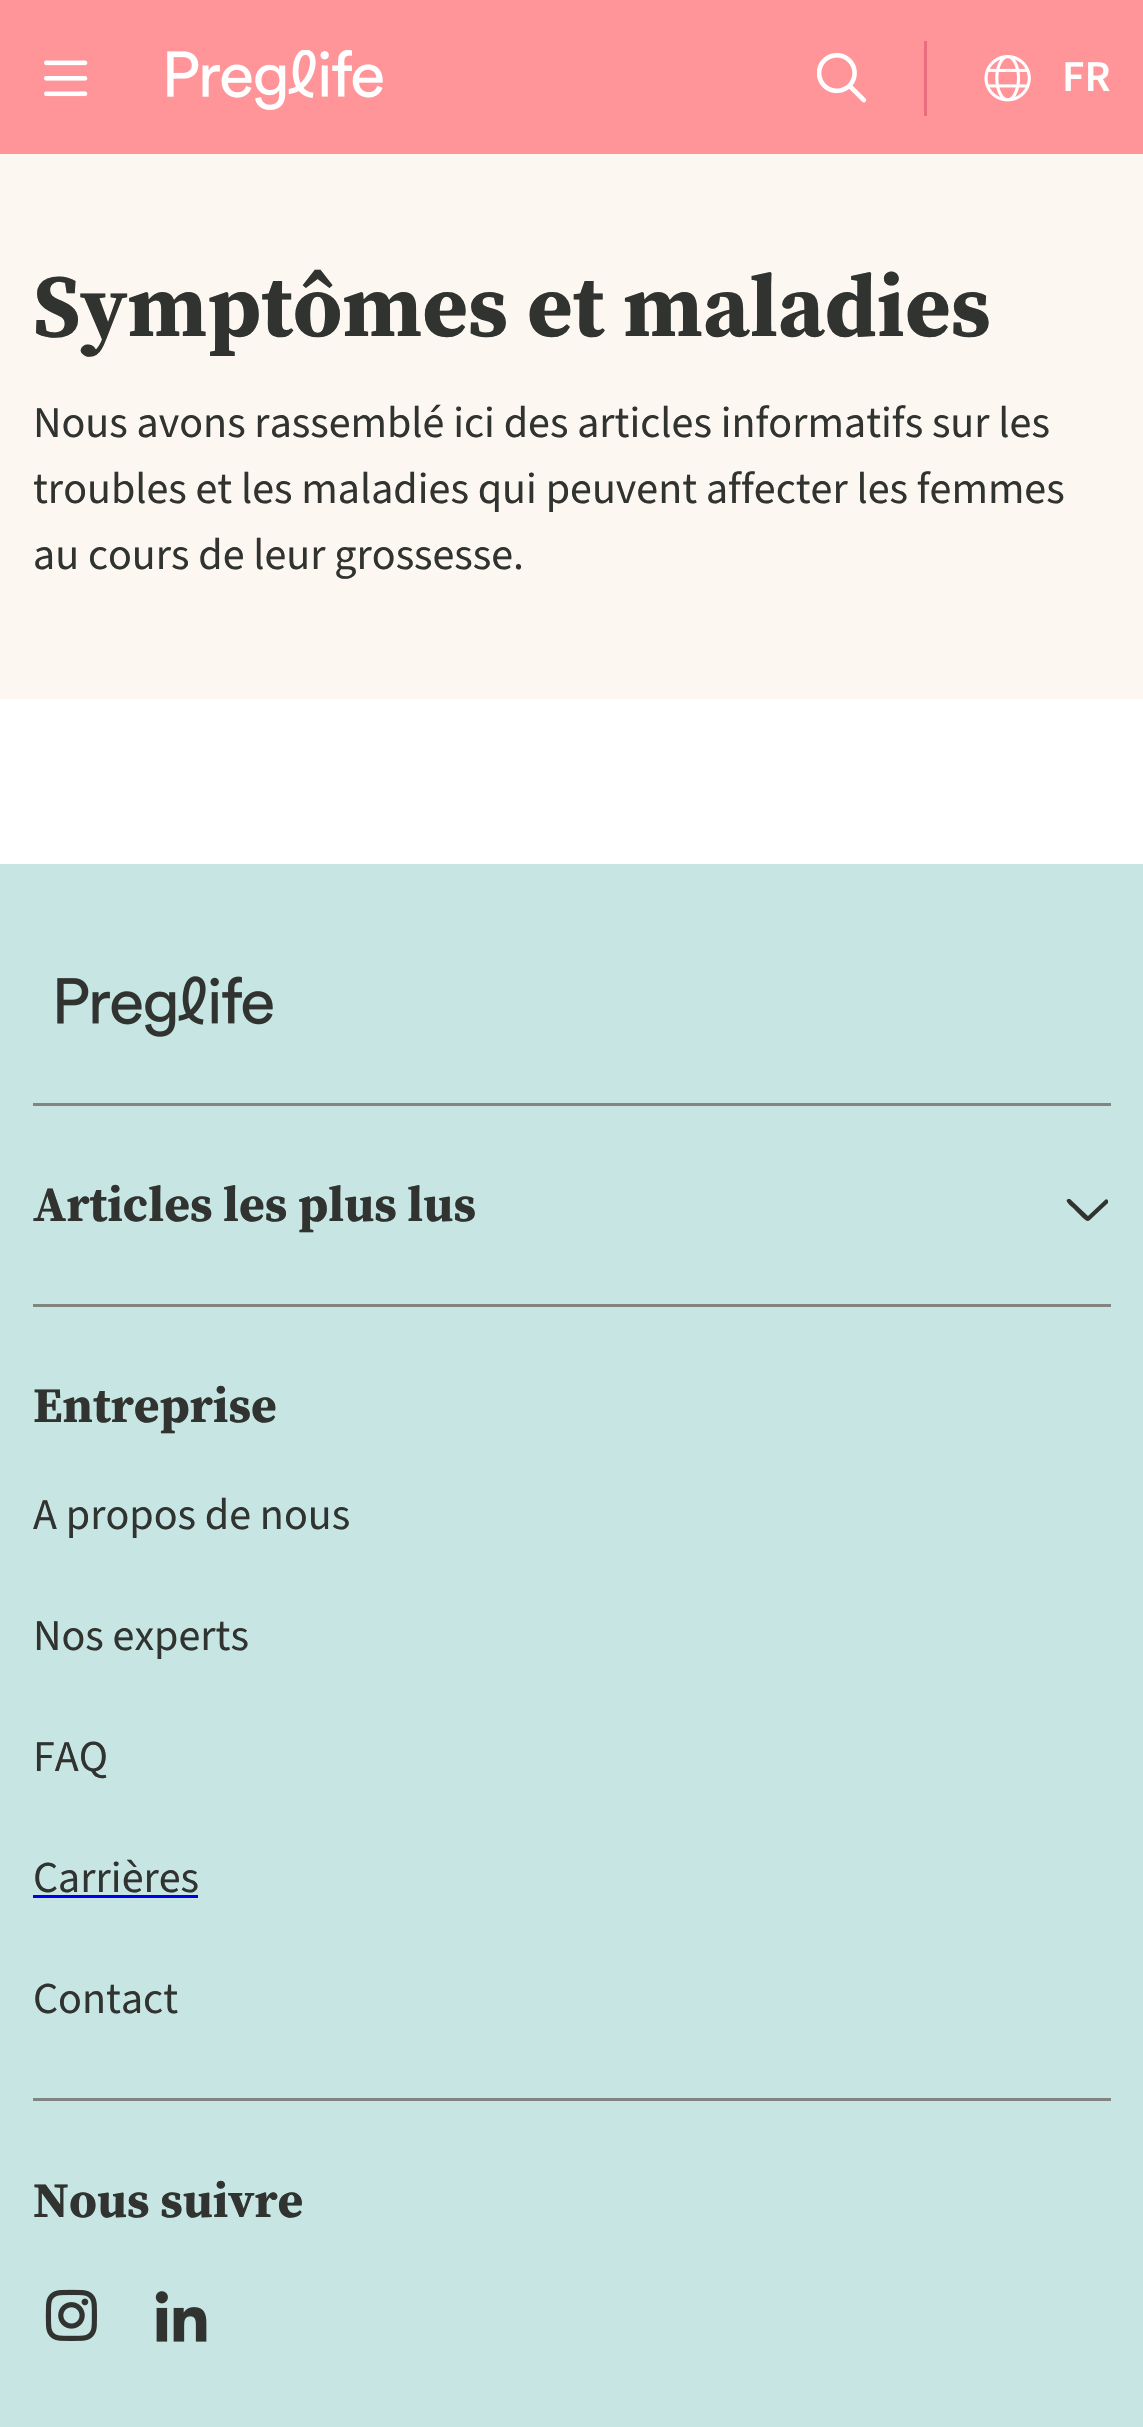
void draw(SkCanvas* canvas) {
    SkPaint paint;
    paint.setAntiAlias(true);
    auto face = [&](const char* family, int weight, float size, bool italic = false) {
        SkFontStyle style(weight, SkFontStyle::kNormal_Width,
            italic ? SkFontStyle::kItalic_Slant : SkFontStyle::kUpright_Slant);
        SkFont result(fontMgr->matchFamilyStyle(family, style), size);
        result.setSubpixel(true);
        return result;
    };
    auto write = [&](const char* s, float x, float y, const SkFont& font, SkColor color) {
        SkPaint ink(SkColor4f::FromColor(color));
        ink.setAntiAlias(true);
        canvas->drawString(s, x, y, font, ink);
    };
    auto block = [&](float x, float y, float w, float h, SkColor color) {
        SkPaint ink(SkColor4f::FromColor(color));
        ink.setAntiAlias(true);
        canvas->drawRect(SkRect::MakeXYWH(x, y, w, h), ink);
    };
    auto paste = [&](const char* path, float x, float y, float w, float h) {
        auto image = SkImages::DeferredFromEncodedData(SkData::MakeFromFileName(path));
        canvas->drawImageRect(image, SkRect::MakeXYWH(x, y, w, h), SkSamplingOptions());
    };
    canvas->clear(SK_ColorWHITE);
    block(0, 0, 1143, 154, SkColorSetRGB(255, 148, 153));
    paste("pic1.png", 44, 60, 44, 37);
    paste("pic2.png", 167, 50, 216, 60);
    paste("pic3.png", 817, 52, 50, 51);
    block(924, 41, 3, 75, SkColorSetRGB(234, 109, 127));
    paste("pic4.png", 984, 55, 47, 47);
    auto kFont1 = face("Source Sans 3", 600, 44);
    write("FR", 1062, 91, kFont1, SK_ColorWHITE);
    block(0, 154, 1143, 545, SkColorSetRGB(252, 247, 241));
    auto kFont2 = face("Source Serif Pro", 700, 88);
    write("Symptômes et maladies", 33, 336, kFont2, SkColorSetRGB(48, 51, 47));
    auto kFont3 = face("Source Sans 3", 400, 44);
    write("Nous avons rassemblé ici des articles informatifs sur les", 33, 437, kFont3, SkColorSetRGB(48, 51, 47));
    write("troubles et les maladies qui peuvent affecter les femmes", 33, 503, kFont3, SkColorSetRGB(48, 51, 47));
    write("au cours de leur grossesse.", 33, 569, kFont3, SkColorSetRGB(48, 51, 47));
    block(0, 864, 1143, 1563, SkColorSetRGB(198, 229, 227));
    block(33, 1103, 1078, 3, SkColorSetRGB(129, 132, 128));
    paste("pic5.png", 57, 976, 216, 61);
    block(33, 1304, 1078, 3, SkColorSetRGB(129, 132, 128));
    auto kFont4 = face("Source Serif Pro", 700, 49.5f);
    write("Articles les plus lus", 33, 1221, kFont4, SkColorSetRGB(48, 51, 47));
    paint.setColor(SkColorSetRGB(48, 51, 47));
    canvas->drawPath(SkPathBuilder().moveTo(1108, 1203).lineTo(1093, 1217).cubicTo(1088, 1222, 1088, 1222, 1083, 1218).lineTo(1074, 1209).cubicTo(1074, 1208, 1063, 1201, 1068, 1199).lineTo(1070, 1199).lineTo(1088, 1216).lineTo(1105, 1200).cubicTo(1106, 1198, 1109, 1200, 1108, 1202).close().detach(), paint);
    block(33, 2098, 1078, 3, SkColorSetRGB(129, 132, 128));
    write("Entreprise", 33, 1422, kFont4, SkColorSetRGB(48, 51, 47));
    write("A propos de nous", 33, 1529, kFont3, SkColorSetRGB(48, 51, 47));
    write("Nos experts", 33, 1650, kFont3, SkColorSetRGB(48, 51, 47));
    write("FAQ", 33, 1771, kFont3, SkColorSetRGB(48, 51, 47));
    write("Carrières", 33, 1892, kFont3, SkColorSetRGB(48, 51, 47));
    block(33, 1895, 165, 3, SkColorSetRGB(0, 0, 238));
    write("Contact", 33, 2013, kFont3, SkColorSetRGB(48, 51, 47));
    write("Nous suivre", 33, 2217, kFont4, SkColorSetRGB(48, 51, 47));
    paste("pic6.png", 45, 2289, 52, 52);
    paste("pic7.png", 155, 2291, 52, 51);
}
